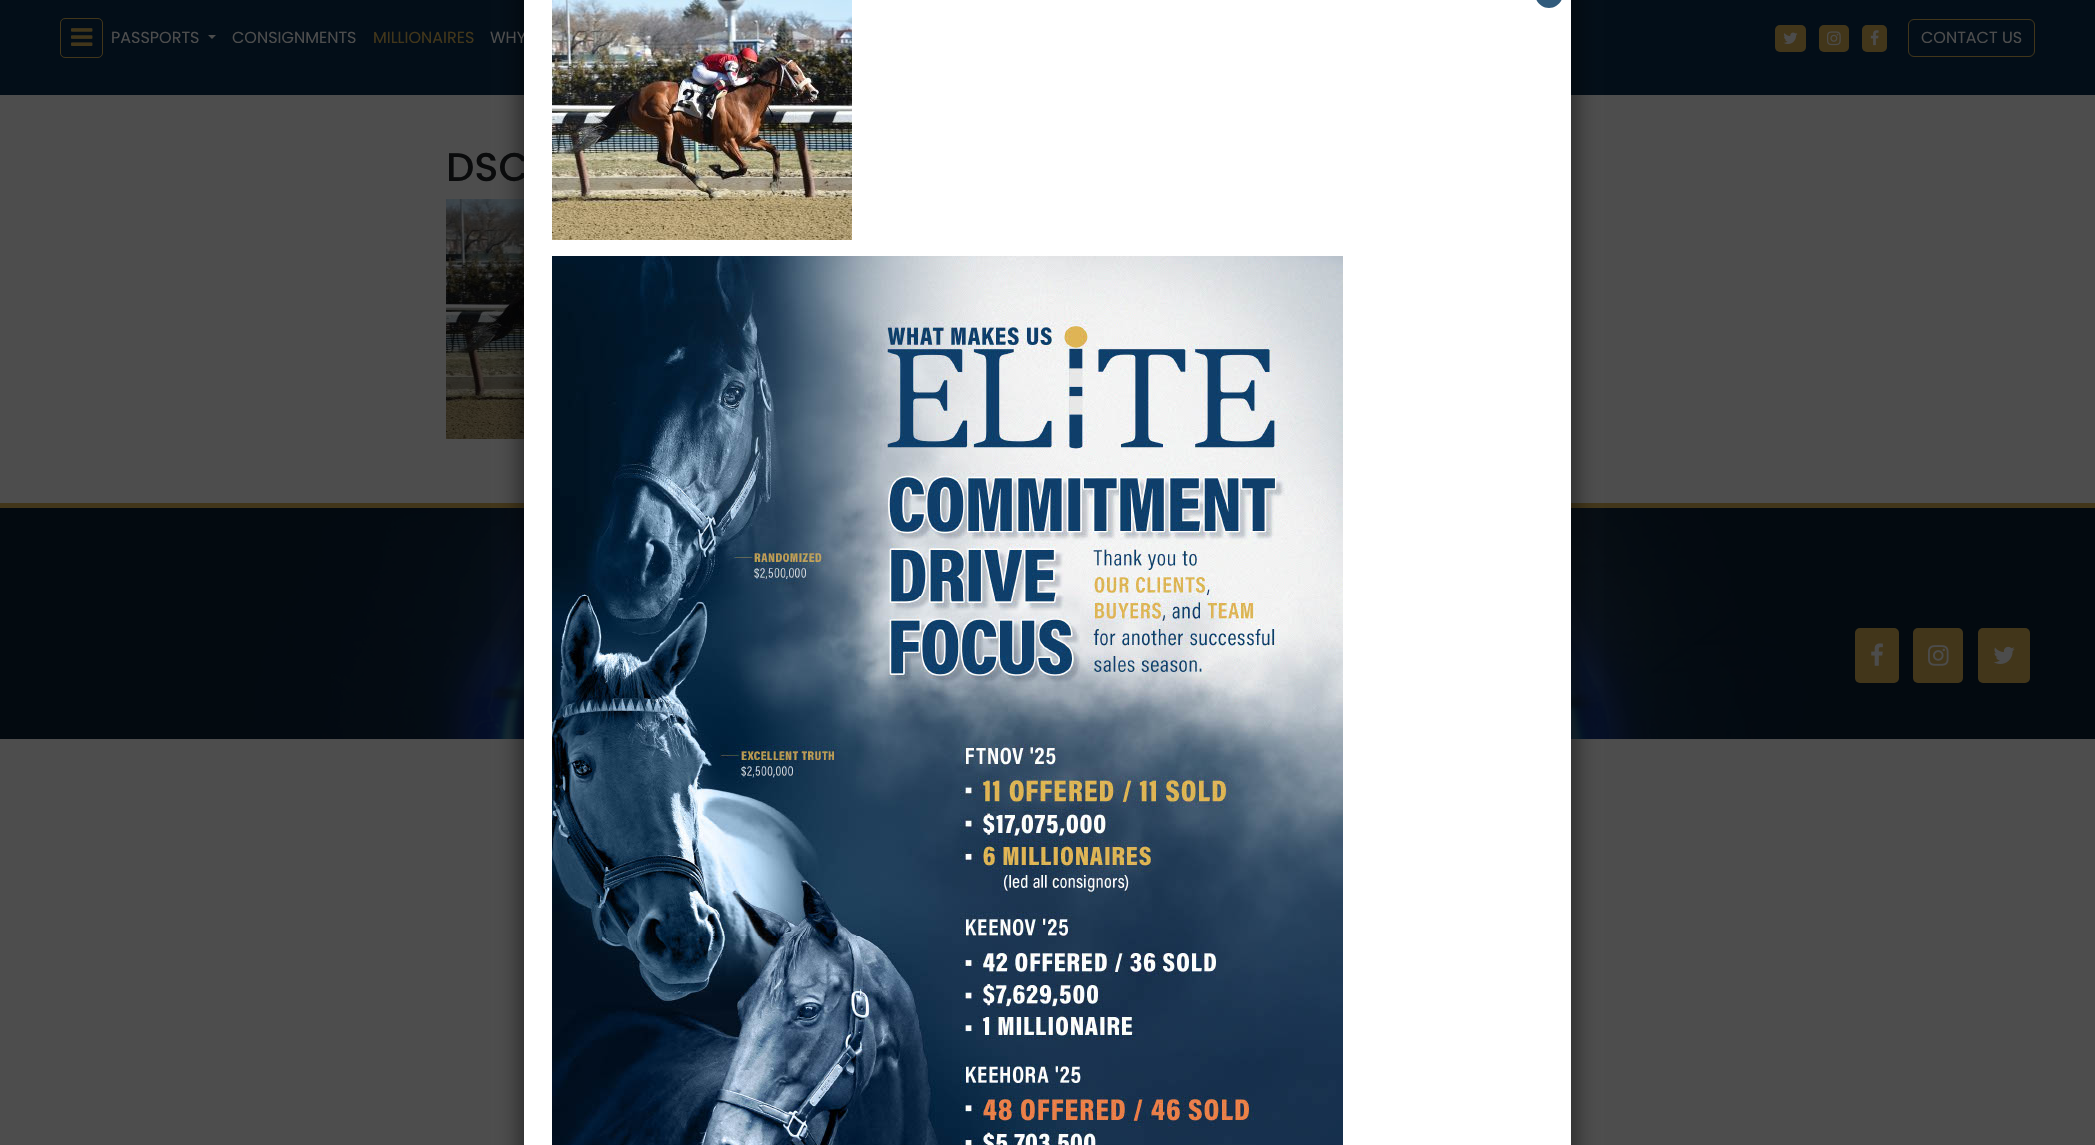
void draw(SkCanvas* canvas) {
    SkPaint paint;
    paint.setAntiAlias(true);
    auto face = [&](const char* family, int weight, float size, bool italic = false) {
        SkFontStyle style(weight, SkFontStyle::kNormal_Width,
            italic ? SkFontStyle::kItalic_Slant : SkFontStyle::kUpright_Slant);
        SkFont result(fontMgr->matchFamilyStyle(family, style), size);
        result.setSubpixel(true);
        return result;
    };
    auto write = [&](const char* s, float x, float y, const SkFont& font, SkColor color) {
        SkPaint ink(SkColor4f::FromColor(color));
        ink.setAntiAlias(true);
        canvas->drawString(s, x, y, font, ink);
    };
    auto block = [&](float x, float y, float w, float h, SkColor color) {
        SkPaint ink(SkColor4f::FromColor(color));
        ink.setAntiAlias(true);
        canvas->drawRect(SkRect::MakeXYWH(x, y, w, h), ink);
    };
    auto card = [&](float x, float y, float w, float h, float radius, SkColor color) {
        SkPaint ink(SkColor4f::FromColor(color));
        ink.setAntiAlias(true);
        canvas->drawRoundRect(SkRect::MakeXYWH(x, y, w, h), radius, radius, ink);
    };
    auto paste = [&](const char* path, float x, float y, float w, float h) {
        auto image = SkImages::DeferredFromEncodedData(SkData::MakeFromFileName(path));
        canvas->drawImageRect(image, SkRect::MakeXYWH(x, y, w, h), SkSamplingOptions());
    };
    canvas->clear(SkColorSetRGB(77, 77, 77));
    block(0, 0, 2095, 95, SkColorSetRGB(3, 14, 24));
    paste("pic7.png", 446, 199, 78, 240);
    paste("pic8.png", 0, 508, 2095, 231);
    block(0, 503, 2095, 5, SkColorSetRGB(66, 54, 26));
    paint.setColor(SkColorSetARGB(128, 2, 2, 2));
    paint.setMaskFilter(SkMaskFilter::MakeBlur(kNormal_SkBlurStyle, 12.5f));
    canvas->drawRoundRect(SkRect::MakeXYWH(520, -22, 1055, 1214), 9, 9, paint);
    paint.setMaskFilter(nullptr);
    auto kFont1 = face("Poppins", 400, 16);
    write("WHY", 490, 43, kFont1, SkColorSetRGB(77, 77, 77));
    auto kFont2 = face("Poppins", 500, 40);
    write("DSC", 446, 181, kFont2, SkColorSetRGB(10, 11, 12));
    block(524, 0, 1047, 1145, SK_ColorWHITE);
    paste("pic1.png", 552, 0, 300, 240);
    paste("pic2.png", 552, 256, 791, 889);
    paint.setColor(SkColorSetRGB(49, 91, 124));
    canvas->drawPath(SkPathBuilder().moveTo(1535, 0).lineTo(1563, 0).lineTo(1563, -6).cubicTo(1563, 1.5f, 1556.5f, 8, 1549, 8).cubicTo(1541.5f, 8, 1535, 1.5f, 1535, -6).close().detach(), paint);
    paint.setStyle(SkPaint::kStroke_Style);
    paint.setStrokeWidth(1);
    paint.setColor(SkColorSetRGB(66, 54, 26));
    canvas->drawRoundRect(SkRect::MakeXYWH(60.5f, 18.5f, 42, 39), 4.5f, 4.5f, paint);
    paste("pic3.png", 71, 28, 22, 18);
    write("PASSPORTS", 111, 43, kFont1, SkColorSetRGB(77, 77, 77));
    paint.setStyle(SkPaint::kFill_Style);
    paint.setColor(SkColorSetRGB(77, 77, 77));
    canvas->drawPath(SkPathBuilder().moveTo(208, 35).lineTo(216, 35).lineTo(212, 39).close().detach(), paint);
    write("CONSIGNMENTS", 232, 43, kFont1, SkColorSetRGB(77, 77, 77));
    write("MILLIONAIRES", 373, 43, kFont1, SkColorSetRGB(66, 54, 26));
    card(1775, 25, 31, 27, 5, SkColorSetRGB(66, 54, 26));
    paste("pic4.png", 1783, 32, 15, 12);
    card(1819, 25, 30, 27, 5, SkColorSetRGB(66, 54, 26));
    paste("pic5.png", 1827, 31, 14, 15);
    card(1862, 25, 25, 27, 5, SkColorSetRGB(66, 54, 26));
    paste("pic6.png", 1870, 30, 9, 16);
    paint.setStyle(SkPaint::kStroke_Style);
    paint.setColor(SkColorSetRGB(66, 54, 26));
    canvas->drawRoundRect(SkRect::MakeXYWH(1908.5f, 19.5f, 126, 37), 5.5f, 5.5f, paint);
    write("CONTACT US", 1921, 43, kFont1, SkColorSetRGB(77, 77, 77));
    card(1855, 628, 44, 55, 5, SkColorSetRGB(66, 54, 26));
    paste("pic9.png", 1871, 643, 12, 23);
    card(1913, 628, 50, 55, 5, SkColorSetRGB(66, 54, 26));
    paste("pic10.png", 1928, 645, 21, 21);
    card(1978, 628, 52, 55, 5, SkColorSetRGB(66, 54, 26));
    paste("pic11.png", 1993, 646, 22, 18);
}
